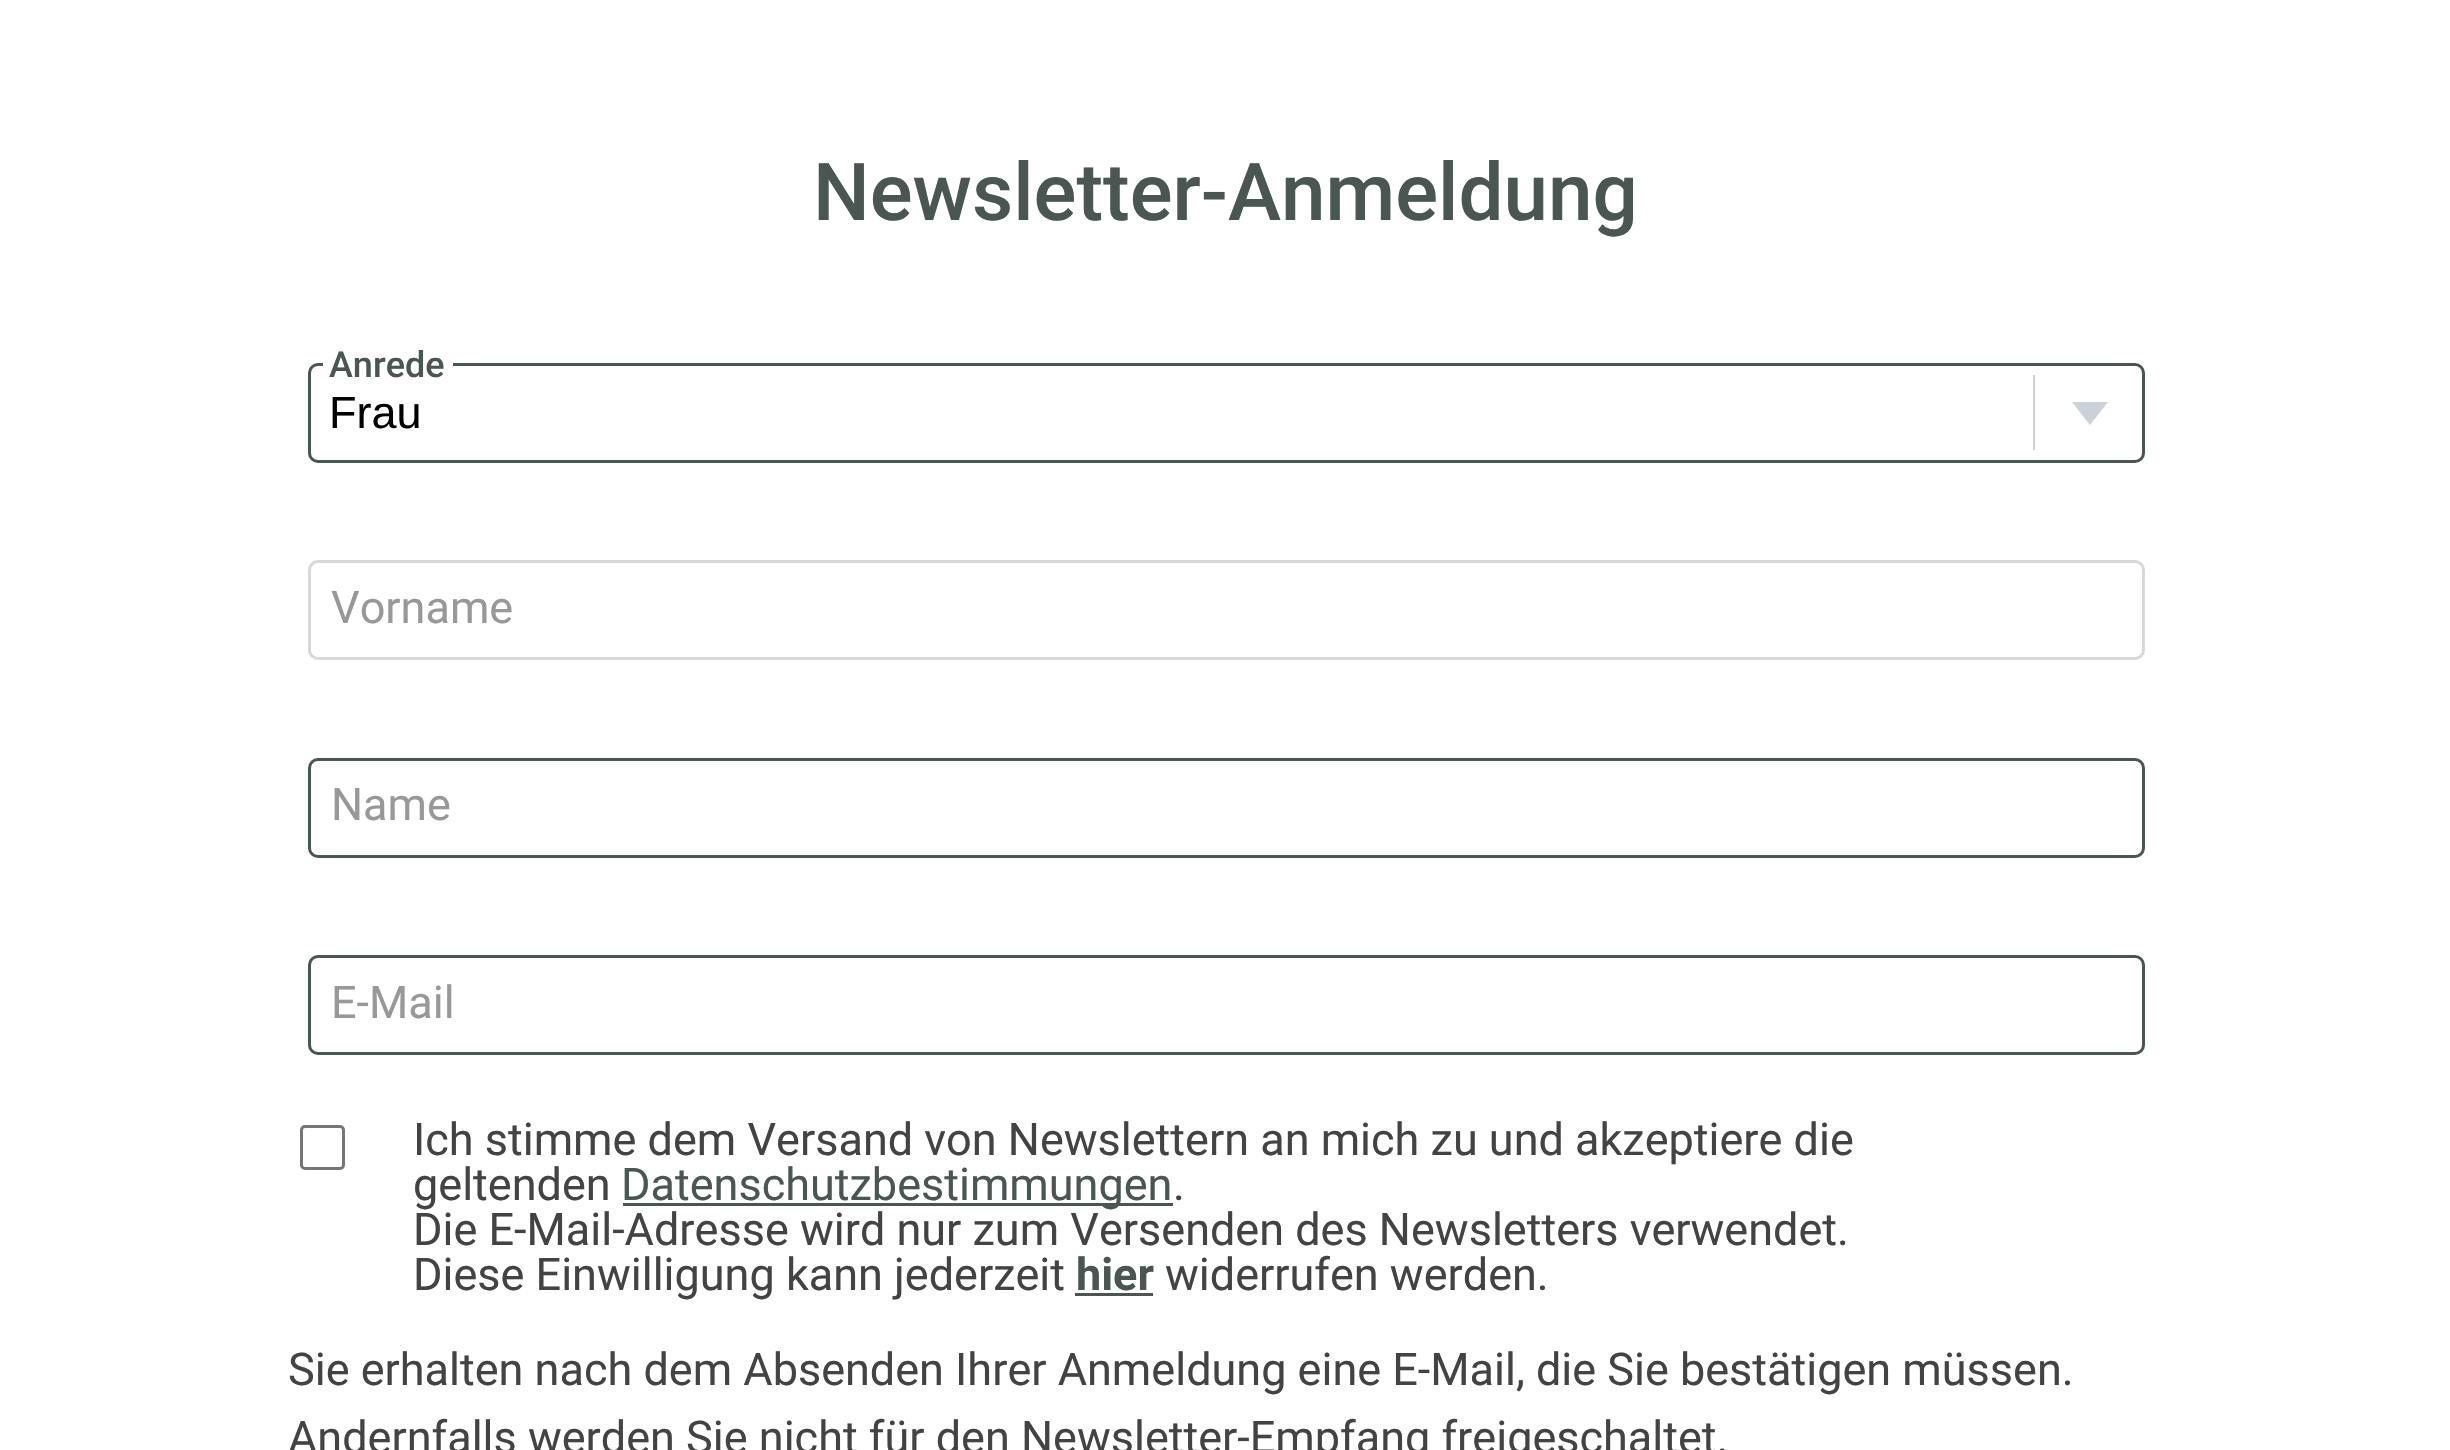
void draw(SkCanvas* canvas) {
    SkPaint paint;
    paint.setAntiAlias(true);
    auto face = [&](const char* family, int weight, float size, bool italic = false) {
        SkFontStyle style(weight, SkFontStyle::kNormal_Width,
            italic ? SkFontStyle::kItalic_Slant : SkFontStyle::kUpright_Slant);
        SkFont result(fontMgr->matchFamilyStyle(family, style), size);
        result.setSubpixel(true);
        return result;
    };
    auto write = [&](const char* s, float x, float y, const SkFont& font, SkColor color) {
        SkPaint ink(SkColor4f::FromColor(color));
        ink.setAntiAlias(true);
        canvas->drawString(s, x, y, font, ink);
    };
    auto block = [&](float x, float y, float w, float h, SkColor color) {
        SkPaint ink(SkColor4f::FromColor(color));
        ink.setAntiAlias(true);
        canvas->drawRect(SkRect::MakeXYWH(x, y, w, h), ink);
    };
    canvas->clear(SK_ColorWHITE);
    auto kFont1 = face("Roboto", 500, 80);
    write("Newsletter-Anmeldung", 813, 220, kFont1, SkColorSetRGB(74, 86, 82));
    canvas->save();
    canvas->clipRect(SkRect::MakeXYWH(2033, 375, 75, 75));
    paint.setColor(SkColorSetRGB(202, 209, 216));
    canvas->drawPath(SkPathBuilder(SkPathFillType::kEvenOdd).moveTo(2032, 375).lineTo(2035, 375).lineTo(2035, 450).lineTo(2032, 450).close().moveTo(2090, 425).lineTo(2072, 402).lineTo(2108, 402).close().detach(), paint);
    canvas->restore();
    paint.setStyle(SkPaint::kStroke_Style);
    paint.setStrokeWidth(3);
    paint.setColor(SkColorSetRGB(74, 86, 82));
    canvas->drawRoundRect(SkRect::MakeXYWH(309.5f, 364.5f, 1834, 97), 8.5f, 8.5f, paint);
    block(323, 363, 130, 3, SK_ColorWHITE);
    auto kFont2 = face("Roboto", 500, 36);
    write("Anrede", 329, 377, kFont2, SkColorSetRGB(74, 86, 82));
    auto kFont3 = face("Liberation Sans", 400, 45);
    write("Frau", 329, 428, kFont3, SK_ColorBLACK);
    paint.setColor(SkColorSetRGB(216, 216, 216));
    canvas->drawRoundRect(SkRect::MakeXYWH(309.5f, 561.5f, 1834, 97), 8.5f, 8.5f, paint);
    auto kFont4 = face("Roboto", 400, 45);
    write("Vorname", 331, 623, kFont4, SkColorSetRGB(152, 152, 152));
    paint.setColor(SkColorSetRGB(74, 86, 82));
    canvas->drawRoundRect(SkRect::MakeXYWH(309.5f, 759.5f, 1834, 97), 8.5f, 8.5f, paint);
    write("Name", 331, 820, kFont4, SkColorSetRGB(152, 152, 152));
    canvas->drawRoundRect(SkRect::MakeXYWH(309.5f, 956.5f, 1834, 97), 8.5f, 8.5f, paint);
    write("E-Mail", 331, 1018, kFont4, SkColorSetRGB(152, 152, 152));
    paint.setColor(SkColorSetRGB(118, 118, 118));
    canvas->drawRoundRect(SkRect::MakeXYWH(301.5f, 1126.5f, 42, 42), 3.5f, 3.5f, paint);
    write("Ich stimme dem Versand von Newslettern an mich zu und akzeptiere die", 413, 1155, kFont4, SkColorSetRGB(67, 67, 69));
    write("geltenden", 413, 1200, kFont4, SkColorSetRGB(67, 67, 69));
    block(623, 1203, 550, 3, SkColorSetRGB(74, 86, 82));
    write("Datenschutzbestimmungen", 621, 1200, kFont4, SkColorSetRGB(74, 86, 82));
    write(".", 1173, 1200, kFont4, SkColorSetRGB(67, 67, 69));
    write("Die E-Mail-Adresse wird nur zum Versenden des Newsletters verwendet.", 413, 1245, kFont4, SkColorSetRGB(67, 67, 69));
    write("Diese Einwilligung kann jederzeit", 413, 1290, kFont4, SkColorSetRGB(67, 67, 69));
    auto kFont5 = face("Roboto", 700, 45);
    write("hier", 1076, 1290, kFont5, SkColorSetRGB(74, 86, 82));
    block(1075, 1293, 78, 3, SkColorSetRGB(74, 86, 82));
    write("widerrufen werden.", 1165, 1290, kFont4, SkColorSetRGB(67, 67, 69));
    write("Sie erhalten nach dem Absenden Ihrer Anmeldung eine E-Mail, die Sie bestätigen müssen.", 288, 1385, kFont4, SkColorSetRGB(67, 67, 69));
    write("Andernfalls werden Sie nicht für den Newsletter-Empfang freigeschaltet.", 288, 1453, kFont4, SkColorSetRGB(67, 67, 69));
}
